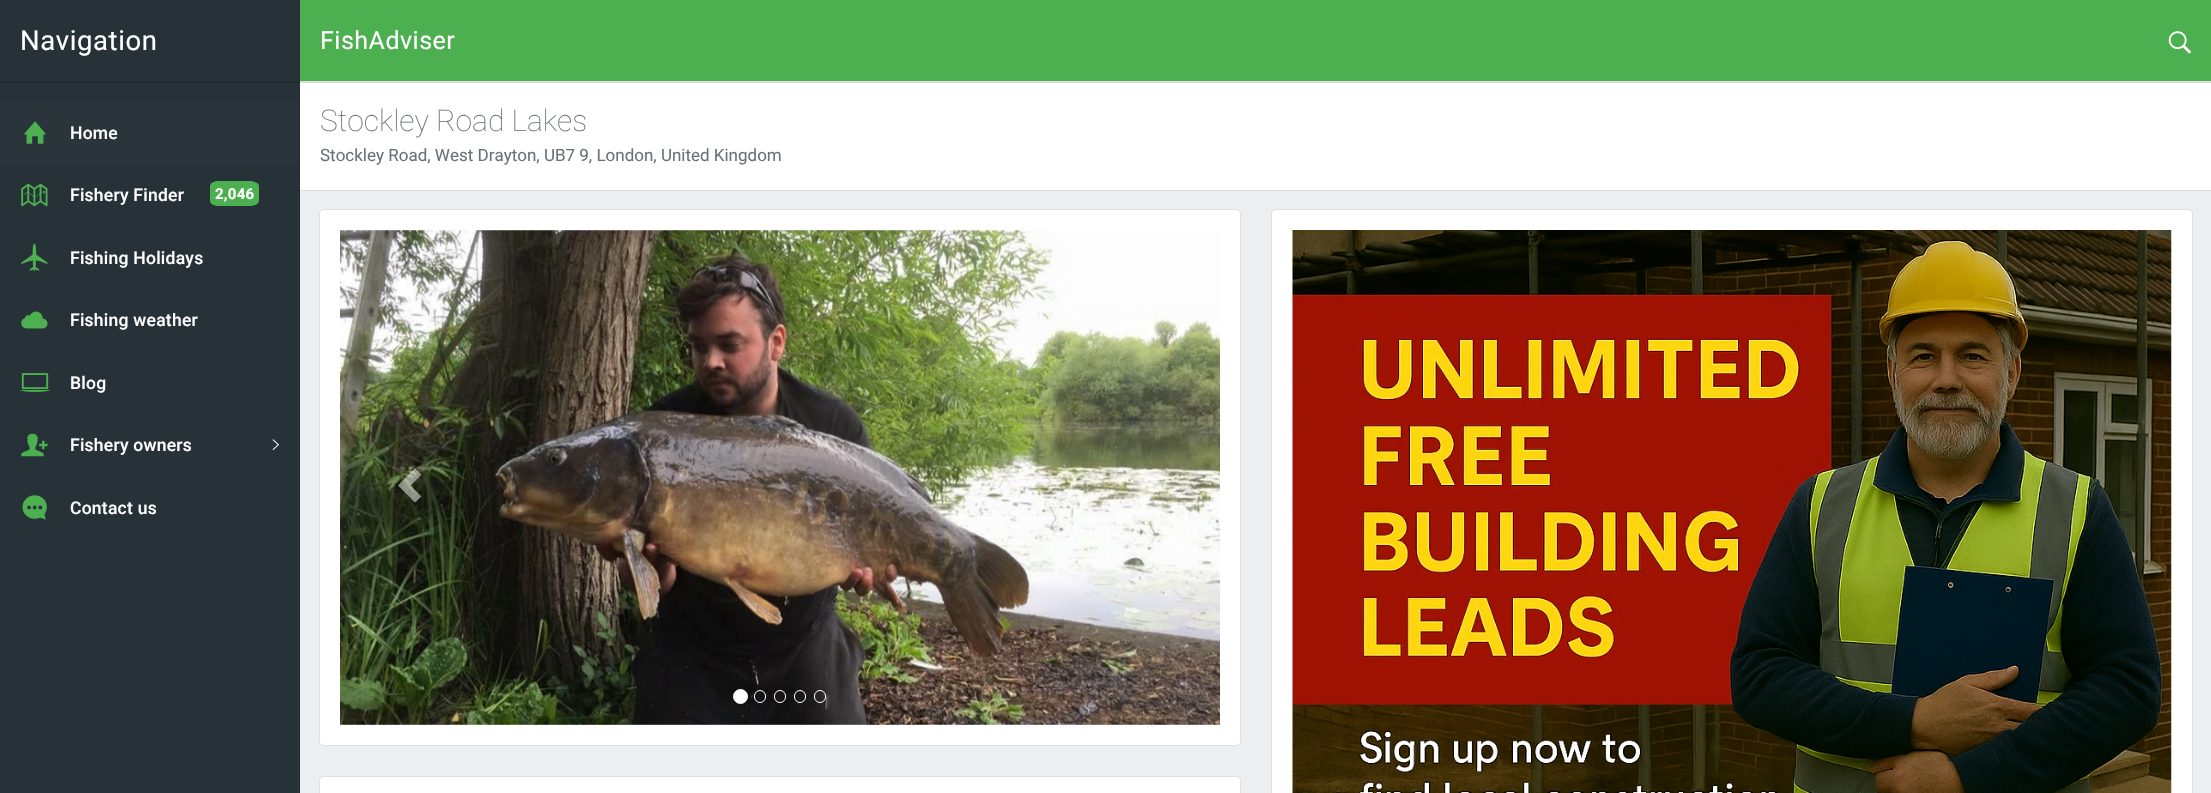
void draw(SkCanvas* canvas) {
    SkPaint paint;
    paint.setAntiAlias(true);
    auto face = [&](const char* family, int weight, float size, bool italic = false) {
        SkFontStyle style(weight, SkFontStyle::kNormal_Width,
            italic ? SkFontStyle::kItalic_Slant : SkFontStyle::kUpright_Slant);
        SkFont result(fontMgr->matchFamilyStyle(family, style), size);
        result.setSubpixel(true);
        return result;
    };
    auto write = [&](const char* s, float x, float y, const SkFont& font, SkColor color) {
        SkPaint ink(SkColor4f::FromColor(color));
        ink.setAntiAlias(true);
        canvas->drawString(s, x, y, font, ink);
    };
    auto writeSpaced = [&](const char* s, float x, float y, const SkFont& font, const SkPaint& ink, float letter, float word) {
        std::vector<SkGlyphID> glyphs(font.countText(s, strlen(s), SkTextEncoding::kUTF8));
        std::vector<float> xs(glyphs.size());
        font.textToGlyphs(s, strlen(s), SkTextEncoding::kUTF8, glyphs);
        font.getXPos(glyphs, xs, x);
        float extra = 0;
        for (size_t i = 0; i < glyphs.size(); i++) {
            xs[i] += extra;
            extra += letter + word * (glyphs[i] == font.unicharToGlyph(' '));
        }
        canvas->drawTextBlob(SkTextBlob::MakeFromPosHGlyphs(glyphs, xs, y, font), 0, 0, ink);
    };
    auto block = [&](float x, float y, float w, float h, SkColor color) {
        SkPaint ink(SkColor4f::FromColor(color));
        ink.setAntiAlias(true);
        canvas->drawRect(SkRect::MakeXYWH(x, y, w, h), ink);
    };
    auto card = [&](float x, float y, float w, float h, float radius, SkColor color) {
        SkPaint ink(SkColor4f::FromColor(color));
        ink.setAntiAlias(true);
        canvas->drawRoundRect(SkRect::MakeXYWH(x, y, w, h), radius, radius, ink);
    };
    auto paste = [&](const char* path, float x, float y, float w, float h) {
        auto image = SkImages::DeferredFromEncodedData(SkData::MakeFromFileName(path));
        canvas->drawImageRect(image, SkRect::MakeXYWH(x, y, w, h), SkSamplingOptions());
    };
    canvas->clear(SkColorSetRGB(236, 239, 241));
    block(300, 0, 1911, 81, SkColorSetRGB(76, 175, 80));
    block(300, 81, 1911, 109, SK_ColorWHITE);
    canvas->save();
    canvas->clipRect(SkRect::MakeXYWH(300, 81, 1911, 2));
    paint.setColor(SkColorSetARGB(36, 0, 0, 0));
    paint.setMaskFilter(SkMaskFilter::MakeBlur(kNormal_SkBlurStyle, 0.5f));
    canvas->drawRect(SkRect::MakeXYWH(299, -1, 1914, 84), paint);
    paint.setMaskFilter(nullptr);
    canvas->restore();
    block(0, 0, 300, 793, SkColorSetRGB(38, 50, 56));
    canvas->save();
    canvas->clipRect(SkRect::MakeXYWH(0, 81, 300, 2));
    paint.setMaskFilter(SkMaskFilter::MakeBlur(kNormal_SkBlurStyle, 0.5f));
    canvas->drawRect(SkRect::MakeXYWH(-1, -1, 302, 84), paint);
    paint.setMaskFilter(nullptr);
    canvas->restore();
    auto kFont1 = face("Roboto", 400, 27.5f);
    paint.setColor(SK_ColorWHITE);
    writeSpaced("Navigation", 20, 50, kFont1, paint, 0.6f, 0);
    block(299, 81, 1, 712, SkColorSetARGB(28, 0, 0, 0));
    block(0, 101, 299, 63, SkColorSetRGB(41, 53, 59));
    paste("pic1.png", 23, 121, 24, 23);
    auto kFont2 = face("Roboto", 500, 17.5f);
    writeSpaced("Home", 70, 139, kFont2, paint, 0.25f, 0);
    paste("pic2.png", 21, 183, 27, 24);
    writeSpaced("Fishery Finder", 70, 201, kFont2, paint, 0.25f, 0);
    paint.setColor(SkColorSetRGB(76, 175, 80));
    canvas->drawPath(SkPathBuilder().moveTo(220, 181).lineTo(249, 181).cubicTo(254, 181, 259, 183, 259, 186).lineTo(259, 201).cubicTo(259, 204, 254, 206, 249, 206).lineTo(220, 206).cubicTo(214, 206, 210, 204, 210, 201).lineTo(210, 186).cubicTo(210, 183, 214, 181, 220, 181).close().detach(), paint);
    auto kFont3 = face("Roboto", 700, 15);
    paint.setColor(SK_ColorWHITE);
    writeSpaced("2,046", 215, 199, kFont3, paint, 0.25f, 0);
    paste("pic3.png", 21, 243, 27, 29);
    writeSpaced("Fishing Holidays", 70, 264, kFont2, paint, 0.25f, 0);
    paste("pic4.png", 21, 311, 27, 18);
    writeSpaced("Fishing weather", 70, 326, kFont2, paint, 0.25f, 0);
    paste("pic5.png", 20, 373, 30, 19);
    writeSpaced("Blog", 70, 389, kFont2, paint, 0.25f, 0);
    paste("pic6.png", 21, 433, 27, 24);
    writeSpaced("Fishery owners", 70, 451, kFont2, paint, 0.25f, 0);
    paste("pic7.png", 272, 439, 7, 12);
    paste("pic8.png", 22, 495, 25, 25);
    writeSpaced("Contact us", 70, 514, kFont2, paint, 0.25f, 0);
    auto kFont4 = face("Roboto", 400, 25);
    writeSpaced("FishAdviser", 320, 49, kFont4, paint, 0.5f, 0);
    paste("pic9.png", 2168, 31, 24, 23);
    block(300, 190, 1911, 1, SkColorSetRGB(220, 223, 224));
    auto kFont5 = face("Roboto", 100, 30);
    write("Stockley Road Lakes", 320, 131, kFont5, SkColorSetRGB(108, 113, 119));
    auto kFont6 = face("Roboto", 400, 17);
    write("Stockley Road, West Drayton, UB7 9, London, United Kingdom", 320, 161, kFont6, SkColorSetRGB(108, 113, 119));
    card(319, 209, 922, 537, 4, SK_ColorWHITE);
    paint.setStyle(SkPaint::kStroke_Style);
    paint.setStrokeWidth(1);
    paint.setColor(SkColorSetARGB(31, 0, 0, 0));
    canvas->drawRoundRect(SkRect::MakeXYWH(319.5f, 209.5f, 921, 536), 3.5f, 3.5f, paint);
    paste("pic10.png", 340, 230, 880, 495);
    paint.setStyle(SkPaint::kFill_Style);
    paint.setColor(SkColorSetARGB(128, 255, 255, 255));
    canvas->drawPath(SkPathBuilder().moveTo(421.5f, 474.5f).lineTo(410.5f, 485.5f).lineTo(421.5f, 496.5f).lineTo(415, 502.5f).lineTo(398, 485.5f).lineTo(415, 468).close().detach(), paint);
    canvas->drawPath(SkPathBuilder().moveTo(1162, 485.5f).lineTo(1145, 502.5f).lineTo(1138.5f, 496.5f).lineTo(1149.5f, 485.5f).lineTo(1138.5f, 474.5f).lineTo(1145, 468).close().detach(), paint);
    paint.setColor(SK_ColorWHITE);
    canvas->drawCircle(740.5f, 696.5f, 7, paint);
    paint.setStyle(SkPaint::kStroke_Style);
    canvas->drawCircle(740.5f, 696.5f, 7, paint);
    canvas->drawRoundRect(SkRect::MakeXYWH(754.5f, 690.5f, 11, 12), 5.5f, 5.5f, paint);
    canvas->drawRoundRect(SkRect::MakeXYWH(774.5f, 690.5f, 11, 12), 5.5f, 5.5f, paint);
    canvas->drawRoundRect(SkRect::MakeXYWH(794.5f, 690.5f, 11, 12), 5.5f, 5.5f, paint);
    canvas->drawRoundRect(SkRect::MakeXYWH(814.5f, 690.5f, 11, 12), 5.5f, 5.5f, paint);
    paint.setStyle(SkPaint::kFill_Style);
    canvas->drawPath(SkPathBuilder().moveTo(323, 776).lineTo(1237, 776).cubicTo(1239, 776, 1241, 778, 1241, 780).lineTo(1241, 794).lineTo(319, 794).lineTo(319, 780).cubicTo(319, 778, 321, 776, 323, 776).close().detach(), paint);
    paint.setStyle(SkPaint::kStroke_Style);
    paint.setColor(SkColorSetARGB(31, 0, 0, 0));
    canvas->drawRoundRect(SkRect::MakeXYWH(319.5f, 776.5f, 921, 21), 3.5f, 3.5f, paint);
    paint.setStyle(SkPaint::kFill_Style);
    paint.setColor(SK_ColorWHITE);
    canvas->drawPath(SkPathBuilder().moveTo(1275, 209).lineTo(2189, 209).cubicTo(2191, 209, 2193, 211, 2193, 213).lineTo(2193, 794).lineTo(1271, 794).lineTo(1271, 213).cubicTo(1271, 211, 1273, 209, 1275, 209).close().detach(), paint);
    paint.setStyle(SkPaint::kStroke_Style);
    paint.setColor(SkColorSetARGB(31, 0, 0, 0));
    canvas->drawRoundRect(SkRect::MakeXYWH(1271.5f, 209.5f, 921, 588), 3.5f, 3.5f, paint);
    paste("pic11.png", 1292, 230, 880, 563);
}
